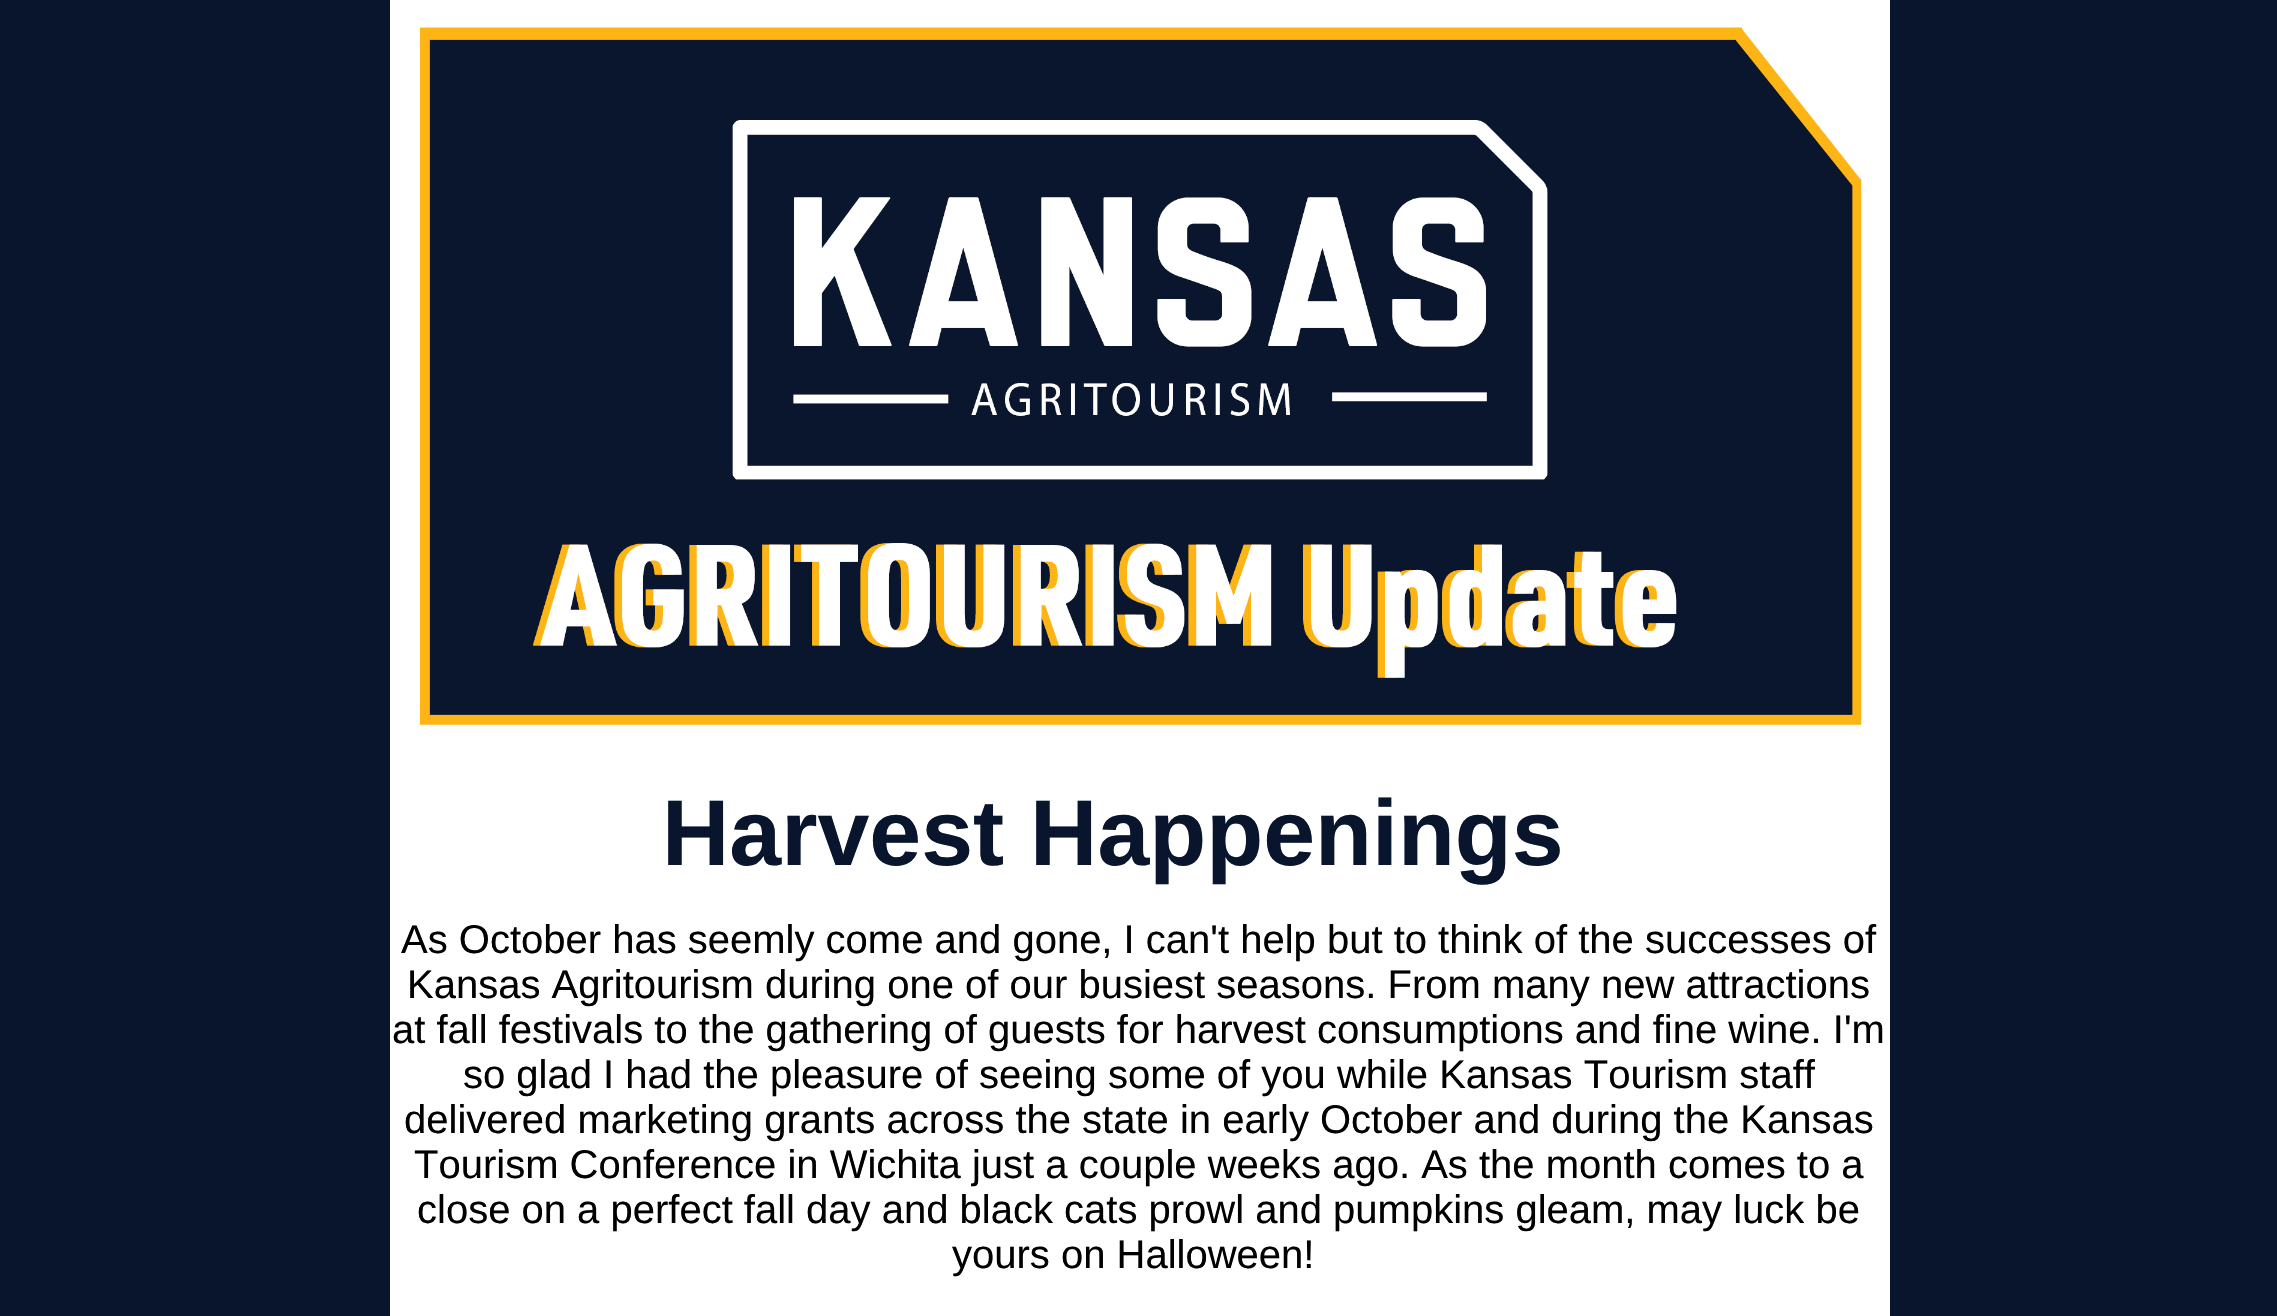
void draw(SkCanvas* canvas) {
    SkPaint paint;
    paint.setAntiAlias(true);
    auto face = [&](const char* family, int weight, float size, bool italic = false) {
        SkFontStyle style(weight, SkFontStyle::kNormal_Width,
            italic ? SkFontStyle::kItalic_Slant : SkFontStyle::kUpright_Slant);
        SkFont result(fontMgr->matchFamilyStyle(family, style), size);
        result.setSubpixel(true);
        return result;
    };
    auto write = [&](const char* s, float x, float y, const SkFont& font, SkColor color) {
        SkPaint ink(SkColor4f::FromColor(color));
        ink.setAntiAlias(true);
        canvas->drawString(s, x, y, font, ink);
    };
    auto block = [&](float x, float y, float w, float h, SkColor color) {
        SkPaint ink(SkColor4f::FromColor(color));
        ink.setAntiAlias(true);
        canvas->drawRect(SkRect::MakeXYWH(x, y, w, h), ink);
    };
    auto paste = [&](const char* path, float x, float y, float w, float h) {
        auto image = SkImages::DeferredFromEncodedData(SkData::MakeFromFileName(path));
        canvas->drawImageRect(image, SkRect::MakeXYWH(x, y, w, h), SkSamplingOptions());
    };
    canvas->clear(SkColorSetRGB(8, 21, 45));
    block(390, 0, 1500, 1316, SK_ColorWHITE);
    paste("pic1.png", 420, 27, 1442, 698);
    auto kFont1 = face("Liberation Sans", 700, 93.25f);
    write("Harvest Happenings", 662, 865, kFont1, SkColorSetRGB(8, 21, 45));
    auto kFont2 = face("Liberation Sans", 400, 40);
    write("As October has seemly come and gone, I can't help but to think of the successes of", 401, 953, kFont2, SK_ColorBLACK);
    write("Kansas Agritourism during one of our busiest seasons. From many new attractions", 407, 998, kFont2, SK_ColorBLACK);
    write("at fall festivals to the gathering of guests for harvest consumptions and fine wine. I'm", 392, 1043, kFont2, SK_ColorBLACK);
    write("so glad I had the pleasure of seeing some of you while Kansas Tourism staff", 463, 1088, kFont2, SK_ColorBLACK);
    write("delivered marketing grants across the state in early October and during the Kansas", 404, 1133, kFont2, SK_ColorBLACK);
    write("Tourism Conference in Wichita just a couple weeks ago. As the month comes to a", 414, 1178, kFont2, SK_ColorBLACK);
    write("close on a perfect fall day and black cats prowl and pumpkins gleam, may luck be", 417, 1223, kFont2, SK_ColorBLACK);
    write("yours on Halloween!", 952, 1268, kFont2, SK_ColorBLACK);
}
